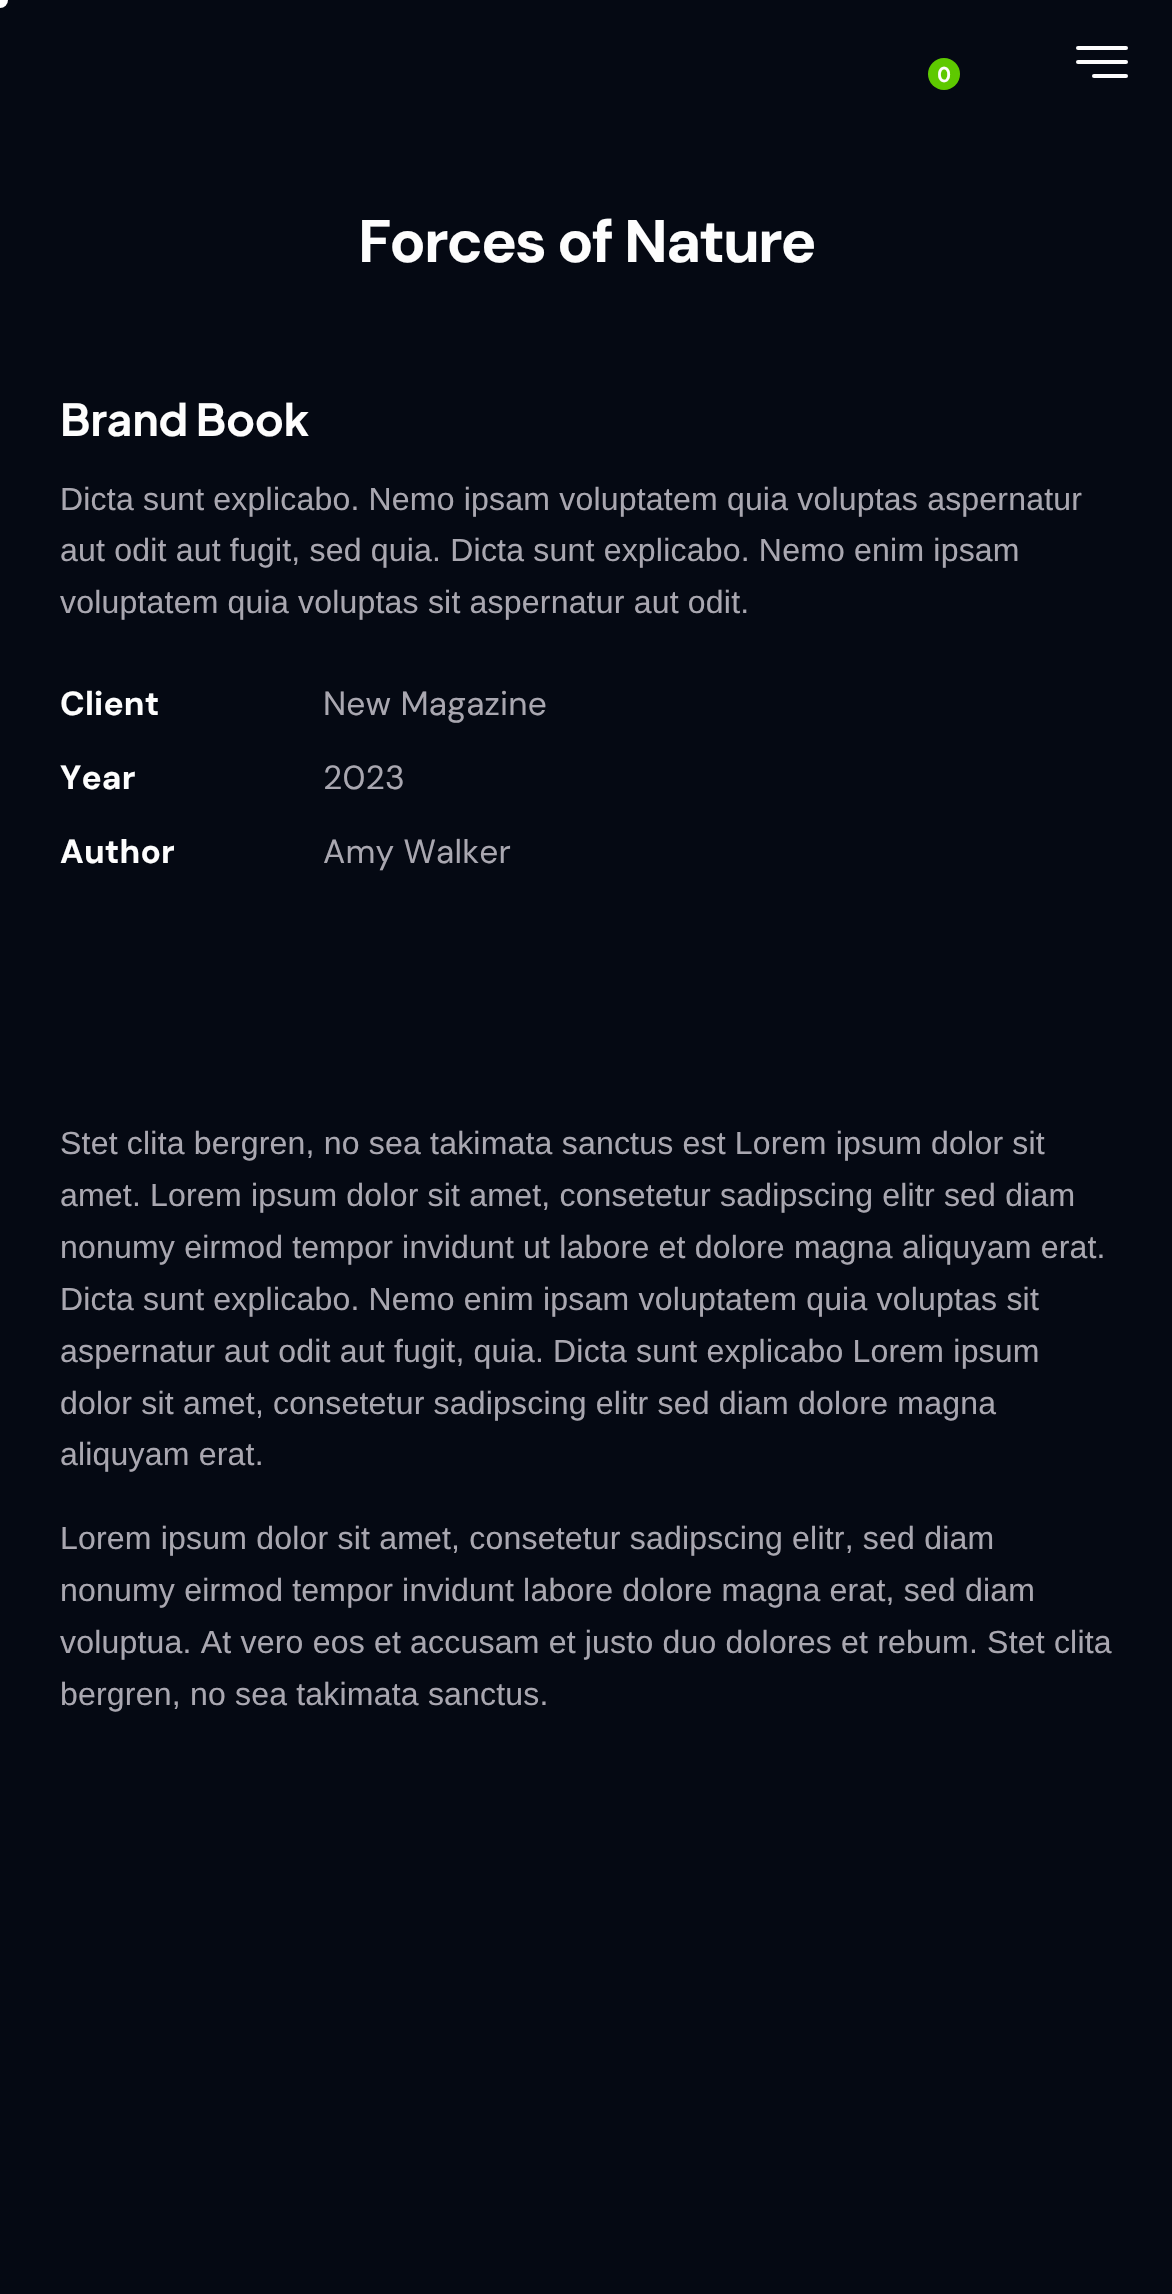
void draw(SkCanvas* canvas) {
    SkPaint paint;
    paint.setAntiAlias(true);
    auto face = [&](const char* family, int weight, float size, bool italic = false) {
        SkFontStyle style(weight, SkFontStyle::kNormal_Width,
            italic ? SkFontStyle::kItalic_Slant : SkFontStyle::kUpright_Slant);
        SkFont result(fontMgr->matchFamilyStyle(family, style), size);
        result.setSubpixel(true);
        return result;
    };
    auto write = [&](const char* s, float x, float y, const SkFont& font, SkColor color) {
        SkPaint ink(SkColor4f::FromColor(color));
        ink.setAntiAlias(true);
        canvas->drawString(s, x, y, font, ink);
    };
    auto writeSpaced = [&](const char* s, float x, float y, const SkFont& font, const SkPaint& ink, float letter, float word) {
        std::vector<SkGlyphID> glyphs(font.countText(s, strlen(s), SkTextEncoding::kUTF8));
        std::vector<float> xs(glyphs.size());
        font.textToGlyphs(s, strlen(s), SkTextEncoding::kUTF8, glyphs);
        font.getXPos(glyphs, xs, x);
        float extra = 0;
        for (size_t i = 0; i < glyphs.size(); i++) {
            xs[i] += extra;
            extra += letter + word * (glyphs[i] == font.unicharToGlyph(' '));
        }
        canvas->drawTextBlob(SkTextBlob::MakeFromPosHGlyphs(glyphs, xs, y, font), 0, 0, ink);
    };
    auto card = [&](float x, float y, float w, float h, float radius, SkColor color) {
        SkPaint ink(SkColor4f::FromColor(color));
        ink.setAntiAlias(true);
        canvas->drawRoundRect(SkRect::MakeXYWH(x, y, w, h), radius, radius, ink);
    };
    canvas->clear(SkColorSetRGB(5, 9, 19));
    paint.setColor(SK_ColorWHITE);
    canvas->drawCircle(0, 0, 8, paint);
    paint.setColor(SkColorSetRGB(94, 201, 0));
    canvas->drawCircle(944, 74, 16, paint);
    auto kFont1 = face("Plus Jakarta Sans", 700, 20);
    write("0", 937, 82, kFont1, SkColorSetRGB(253, 253, 253));
    card(1076, 60, 52, 4, 2, SkColorSetRGB(253, 253, 253));
    card(1076, 46, 52, 4, 2, SkColorSetRGB(253, 253, 253));
    card(1092, 74, 36, 4, 2, SkColorSetRGB(253, 253, 253));
    auto kFont2 = face("DM Sans", 700, 60);
    paint.setColor(SkColorSetRGB(253, 253, 253));
    writeSpaced("Forces of Nature", 358, 262, kFont2, paint, -2, 0);
    auto kFont3 = face("Plus Jakarta Sans", 700, 44);
    write("Brand Book", 60, 436, kFont3, SkColorSetRGB(253, 253, 253));
    auto kFont4 = face("Liberation Sans", 400, 32);
    paint.setColor(SkColorSetRGB(169, 167, 176));
    writeSpaced("Dicta sunt explicabo. Nemo ipsam voluptatem quia voluptas aspernatur", 60, 510, kFont4, paint, 0.2f, 0);
    writeSpaced("aut odit aut fugit, sed quia. Dicta sunt explicabo. Nemo enim ipsam", 60, 561, kFont4, paint, 0.2f, 0);
    writeSpaced("voluptatem quia voluptas sit aspernatur aut odit.", 60, 613, kFont4, paint, 0.2f, 0);
    auto kFont5 = face("DM Sans", 700, 33.5f);
    paint.setColor(SkColorSetRGB(253, 253, 253));
    writeSpaced("Client", 60, 715, kFont5, paint, 0.2f, 0);
    auto kFont6 = face("DM Sans", 400, 33.5f);
    paint.setColor(SkColorSetRGB(169, 167, 176));
    writeSpaced("New Magazine", 323, 715, kFont6, paint, 0.2f, 0);
    paint.setColor(SkColorSetRGB(253, 253, 253));
    writeSpaced("Year", 60, 789, kFont5, paint, 0.2f, 0);
    paint.setColor(SkColorSetRGB(169, 167, 176));
    writeSpaced("2023", 323, 789, kFont6, paint, 0.2f, 0);
    paint.setColor(SkColorSetRGB(253, 253, 253));
    writeSpaced("Author", 60, 863, kFont5, paint, 0.2f, 0);
    paint.setColor(SkColorSetRGB(169, 167, 176));
    writeSpaced("Amy Walker", 323, 863, kFont6, paint, 0.2f, 0);
    writeSpaced("Stet clita bergren, no sea takimata sanctus est Lorem ipsum dolor sit", 60, 1154, kFont4, paint, 0.2f, 0);
    writeSpaced("amet. Lorem ipsum dolor sit amet, consetetur sadipscing elitr sed diam", 60, 1206, kFont4, paint, 0.2f, 0);
    writeSpaced("nonumy eirmod tempor invidunt ut labore et dolore magna aliquyam erat.", 60, 1258, kFont4, paint, 0.2f, 0);
    writeSpaced("Dicta sunt explicabo. Nemo enim ipsam voluptatem quia voluptas sit", 60, 1310, kFont4, paint, 0.2f, 0);
    writeSpaced("aspernatur aut odit aut fugit, quia. Dicta sunt explicabo Lorem ipsum", 60, 1362, kFont4, paint, 0.2f, 0);
    writeSpaced("dolor sit amet, consetetur sadipscing elitr sed diam dolore magna", 60, 1414, kFont4, paint, 0.2f, 0);
    writeSpaced("aliquyam erat.", 60, 1465, kFont4, paint, 0.2f, 0);
    writeSpaced("Lorem ipsum dolor sit amet, consetetur sadipscing elitr, sed diam", 60, 1549, kFont4, paint, 0.2f, 0);
    writeSpaced("nonumy eirmod tempor invidunt labore dolore magna erat, sed diam", 60, 1601, kFont4, paint, 0.2f, 0);
    writeSpaced("voluptua. At vero eos et accusam et justo duo dolores et rebum. Stet clita", 60, 1653, kFont4, paint, 0.2f, 0);
    writeSpaced("bergren, no sea takimata sanctus.", 60, 1705, kFont4, paint, 0.2f, 0);
}
